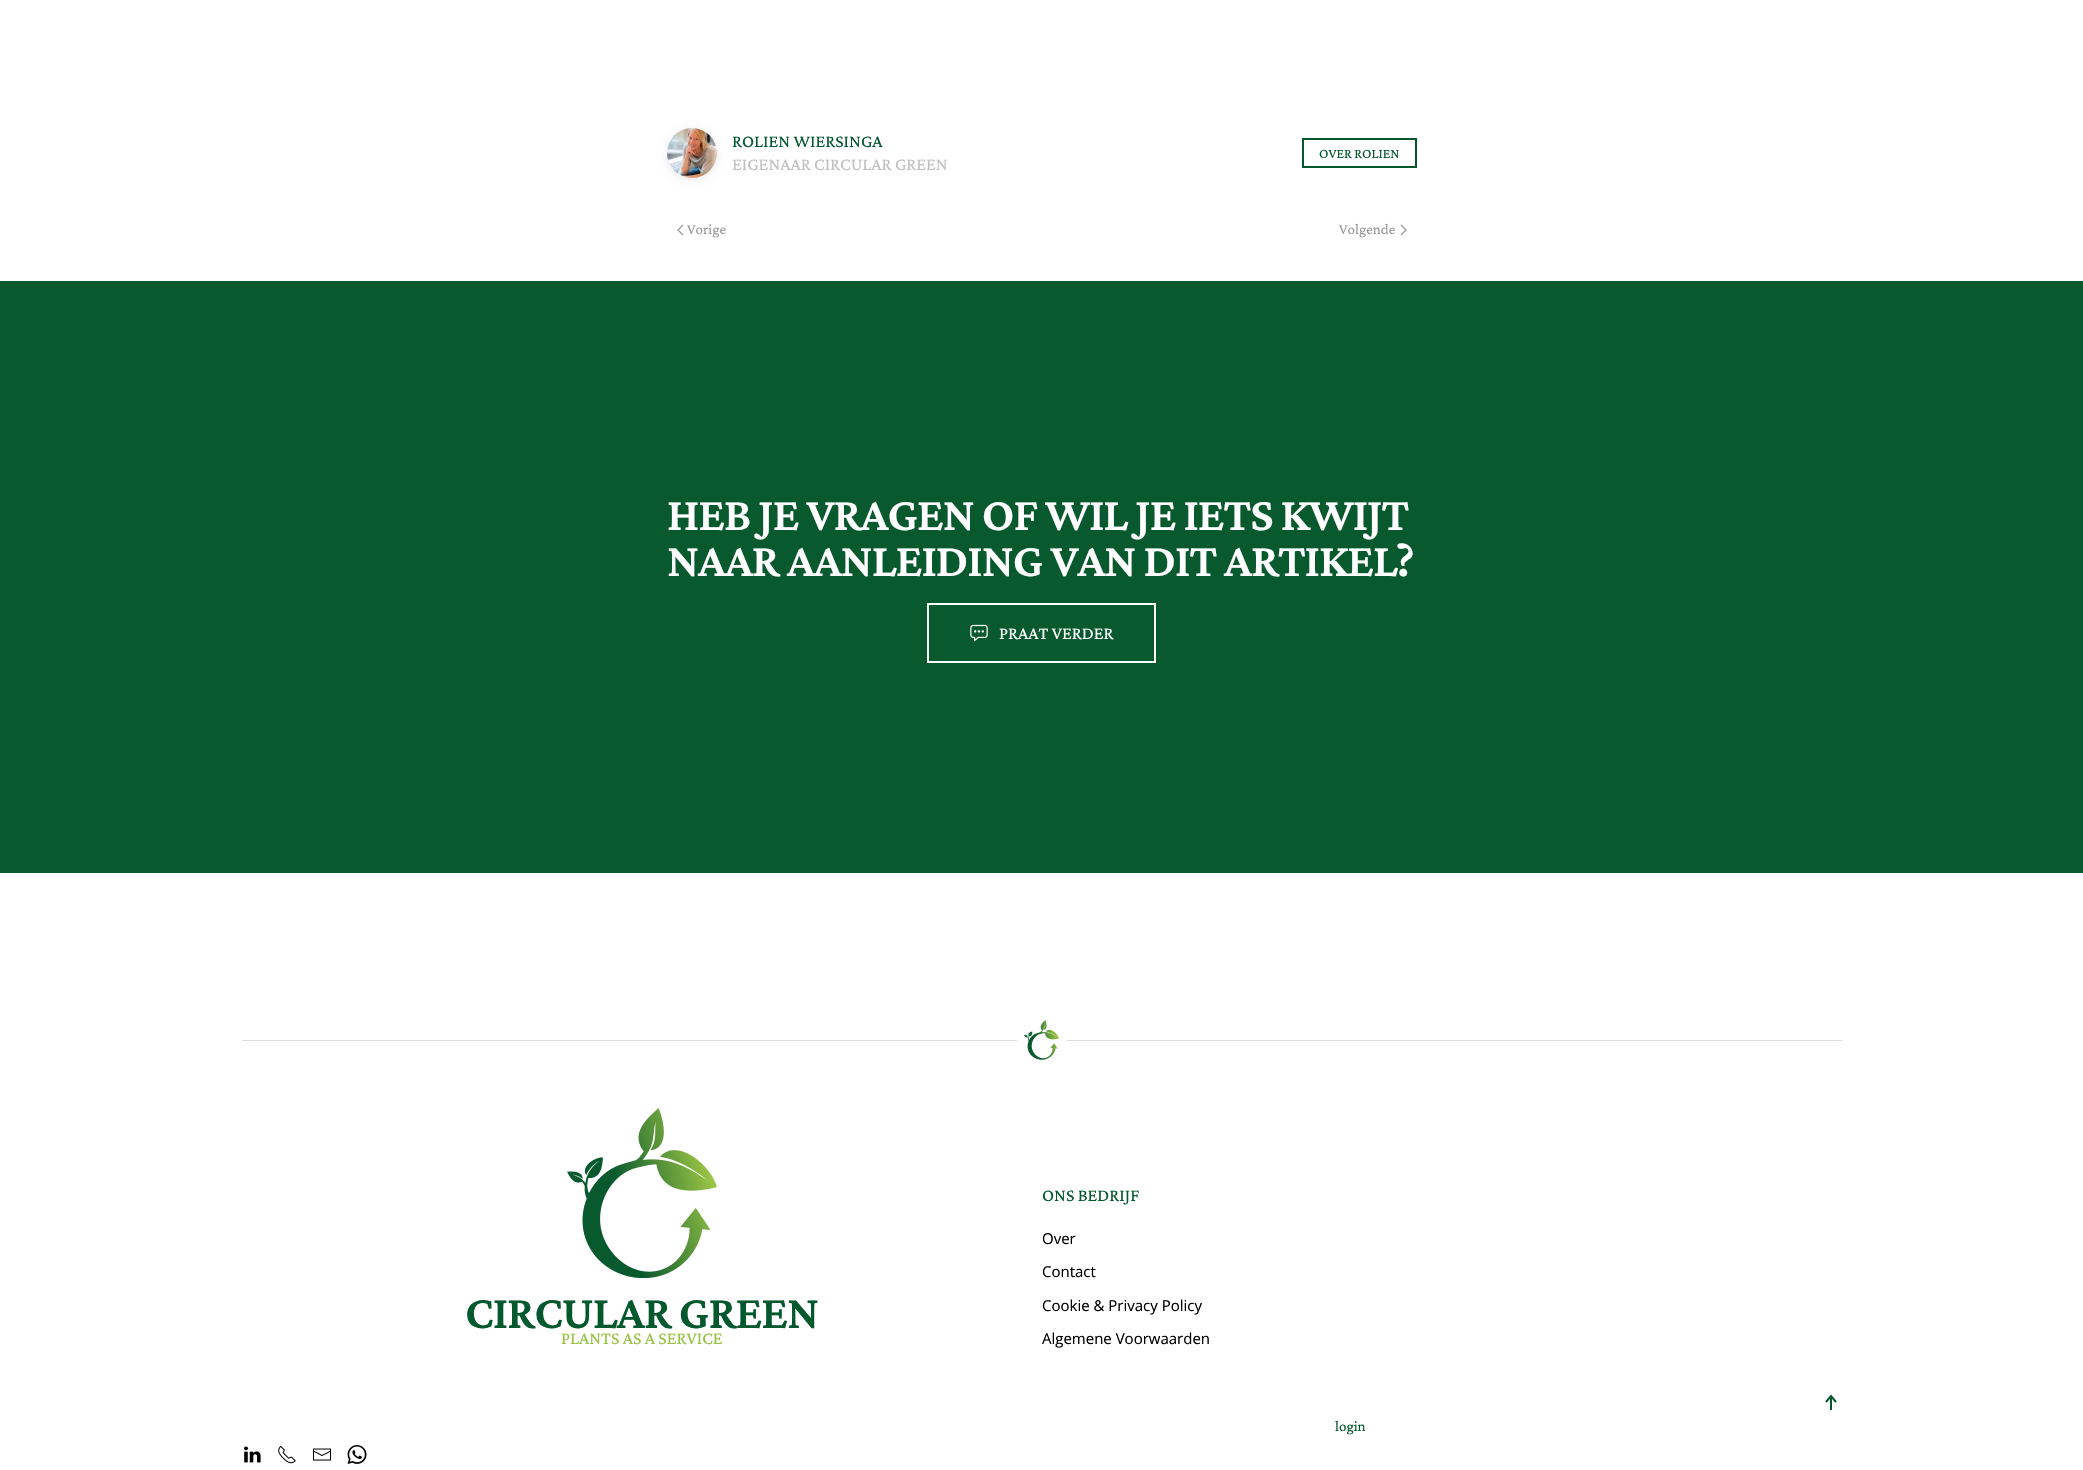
void draw(SkCanvas* canvas) {
    SkPaint paint;
    paint.setAntiAlias(true);
    auto face = [&](const char* family, int weight, float size, bool italic = false) {
        SkFontStyle style(weight, SkFontStyle::kNormal_Width,
            italic ? SkFontStyle::kItalic_Slant : SkFontStyle::kUpright_Slant);
        SkFont result(fontMgr->matchFamilyStyle(family, style), size);
        result.setSubpixel(true);
        return result;
    };
    auto write = [&](const char* s, float x, float y, const SkFont& font, SkColor color) {
        SkPaint ink(SkColor4f::FromColor(color));
        ink.setAntiAlias(true);
        canvas->drawString(s, x, y, font, ink);
    };
    auto writeSpaced = [&](const char* s, float x, float y, const SkFont& font, const SkPaint& ink, float letter, float word) {
        std::vector<SkGlyphID> glyphs(font.countText(s, strlen(s), SkTextEncoding::kUTF8));
        std::vector<float> xs(glyphs.size());
        font.textToGlyphs(s, strlen(s), SkTextEncoding::kUTF8, glyphs);
        font.getXPos(glyphs, xs, x);
        float extra = 0;
        for (size_t i = 0; i < glyphs.size(); i++) {
            xs[i] += extra;
            extra += letter + word * (glyphs[i] == font.unicharToGlyph(' '));
        }
        canvas->drawTextBlob(SkTextBlob::MakeFromPosHGlyphs(glyphs, xs, y, font), 0, 0, ink);
    };
    auto block = [&](float x, float y, float w, float h, SkColor color) {
        SkPaint ink(SkColor4f::FromColor(color));
        ink.setAntiAlias(true);
        canvas->drawRect(SkRect::MakeXYWH(x, y, w, h), ink);
    };
    auto paste = [&](const char* path, float x, float y, float w, float h) {
        auto image = SkImages::DeferredFromEncodedData(SkData::MakeFromFileName(path));
        canvas->drawImageRect(image, SkRect::MakeXYWH(x, y, w, h), SkSamplingOptions());
    };
    canvas->clear(SK_ColorWHITE);
    paint.setColor(SkColorSetARGB(20, 0, 0, 0));
    paint.setMaskFilter(SkMaskFilter::MakeBlur(kNormal_SkBlurStyle, 4));
    canvas->drawRoundRect(SkRect::MakeXYWH(667, 130, 50, 50), 25, 25, paint);
    paint.setMaskFilter(nullptr);
    paste("pic1.png", 667, 128, 50, 50);
    auto kFont1 = face("Crimson Pro", 400, 18);
    write("ROLIEN WIERSINGA", 732, 147, kFont1, SkColorSetRGB(4, 88, 45));
    write("EIGENAAR CIRCULAR GREEN", 732, 170, kFont1, SkColorSetRGB(194, 193, 193));
    paint.setStyle(SkPaint::kStroke_Style);
    paint.setStrokeWidth(2);
    paint.setColor(SkColorSetRGB(4, 88, 45));
    canvas->drawRect(SkRect::MakeXYWH(1303, 139, 113, 28), paint);
    auto kFont2 = face("Crimson Pro", 400, 14);
    write("OVER ROLIEN", 1319, 158, kFont2, SkColorSetRGB(4, 88, 45));
    paint.setStrokeWidth(1.2f);
    paint.setColor(SkColorSetRGB(153, 153, 153));
    canvas->drawPath(SkPathBuilder().moveTo(683, 225).lineTo(678, 230).lineTo(683, 235).detach(), paint);
    auto kFont3 = face("Crimson Pro", 400, 15);
    write("Vorige", 687, 234, kFont3, SkColorSetRGB(153, 153, 153));
    write("Volgende", 1339, 234, kFont3, SkColorSetRGB(153, 153, 153));
    canvas->drawPath(SkPathBuilder().moveTo(1401, 225).lineTo(1406, 230).lineTo(1401, 235).detach(), paint);
    block(0, 281, 2083, 592, SkColorSetRGB(9, 89, 46));
    auto kFont4 = face("Crimson Pro", 600, 48);
    paint.setStyle(SkPaint::kFill_Style);
    paint.setColor(SK_ColorWHITE);
    writeSpaced("HEB JE VRAGEN OF WIL JE IETS KWIJT", 667, 530, kFont4, paint, -1.1f, 0);
    writeSpaced("NAAR AANLEIDING VAN DIT ARTIKEL?", 667, 576, kFont4, paint, -1.1f, 0);
    paint.setStyle(SkPaint::kStroke_Style);
    paint.setStrokeWidth(2);
    canvas->drawRect(SkRect::MakeXYWH(928, 604, 227, 58), paint);
    paste("pic2.png", 970, 624, 18, 18);
    write("PRAAT VERDER", 999, 639, kFont1, SK_ColorWHITE);
    paste("pic3.png", 1024, 1020, 35, 40);
    block(242, 1040, 775, 1, SkColorSetRGB(221, 221, 221));
    block(1067, 1040, 775, 1, SkColorSetRGB(221, 221, 221));
    paste("pic4.png", 567, 1108, 150, 170);
    paint.setStyle(SkPaint::kFill_Style);
    paint.setColor(SkColorSetRGB(4, 88, 45));
    writeSpaced("CIRCULAR GREEN", 465, 1328, kFont4, paint, -1.1f, 0);
    write("PLANTS AS A SERVICE", 561, 1344, kFont1, SkColorSetRGB(152, 195, 67));
    write("ONS BEDRIJF", 1042, 1201, kFont1, SkColorSetRGB(4, 88, 45));
    auto kFont5 = face("Open Sans", 400, 15);
    write("Over", 1042, 1244, kFont5, SK_ColorBLACK);
    write("Contact", 1042, 1277, kFont5, SK_ColorBLACK);
    write("Cookie & Privacy Policy", 1042, 1311, kFont5, SK_ColorBLACK);
    write("Algemene Voorwaarden", 1042, 1344, kFont5, SK_ColorBLACK);
    paint.setStyle(SkPaint::kStroke_Style);
    canvas->drawPath(SkPathBuilder().moveTo(1826, 1402).lineTo(1831, 1396).lineTo(1836, 1402).moveTo(1831, 1397).lineTo(1831, 1410).detach(), paint);
    write("login", 1335, 1431, kFont3, SkColorSetRGB(4, 88, 45));
    paste("pic5.png", 244, 1446, 17, 17);
    paste("pic6.png", 278, 1445, 18, 19);
    paste("pic7.png", 313, 1448, 18, 13);
    paste("pic8.png", 347, 1445, 20, 19);
}
